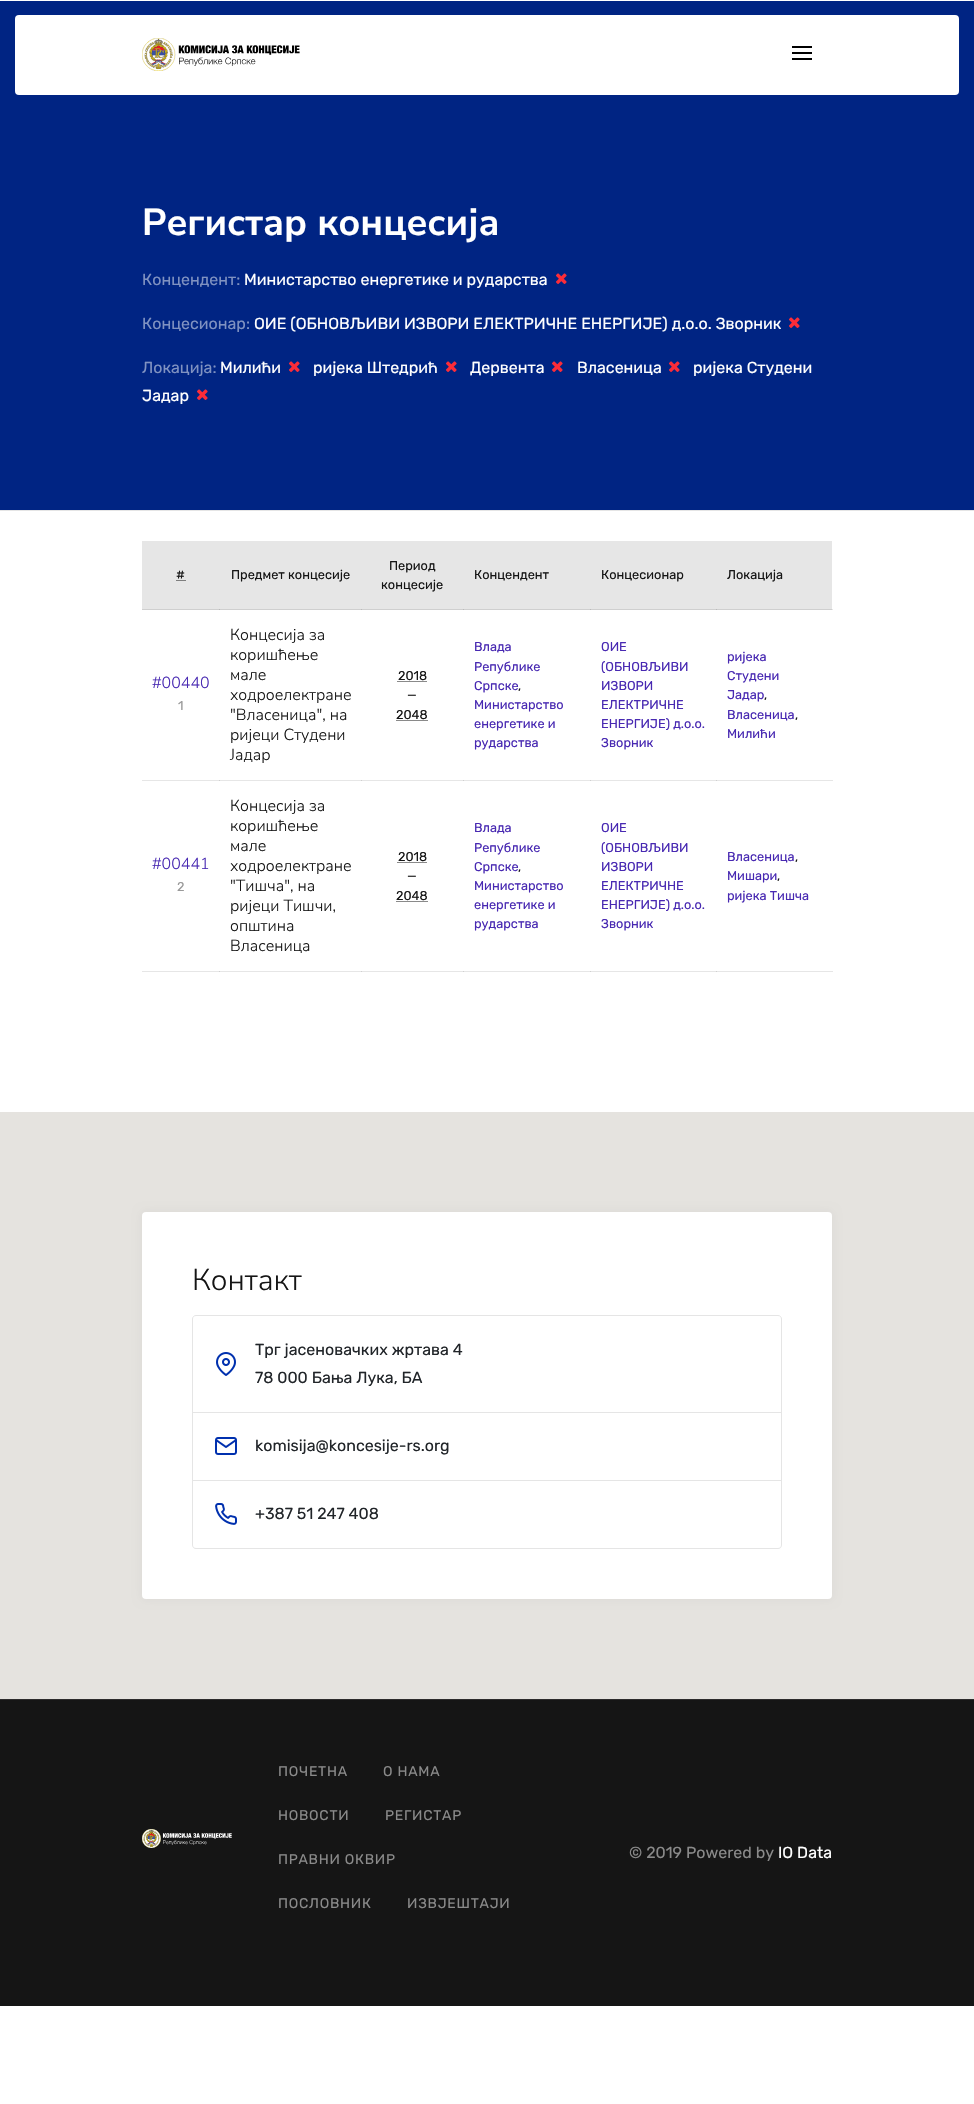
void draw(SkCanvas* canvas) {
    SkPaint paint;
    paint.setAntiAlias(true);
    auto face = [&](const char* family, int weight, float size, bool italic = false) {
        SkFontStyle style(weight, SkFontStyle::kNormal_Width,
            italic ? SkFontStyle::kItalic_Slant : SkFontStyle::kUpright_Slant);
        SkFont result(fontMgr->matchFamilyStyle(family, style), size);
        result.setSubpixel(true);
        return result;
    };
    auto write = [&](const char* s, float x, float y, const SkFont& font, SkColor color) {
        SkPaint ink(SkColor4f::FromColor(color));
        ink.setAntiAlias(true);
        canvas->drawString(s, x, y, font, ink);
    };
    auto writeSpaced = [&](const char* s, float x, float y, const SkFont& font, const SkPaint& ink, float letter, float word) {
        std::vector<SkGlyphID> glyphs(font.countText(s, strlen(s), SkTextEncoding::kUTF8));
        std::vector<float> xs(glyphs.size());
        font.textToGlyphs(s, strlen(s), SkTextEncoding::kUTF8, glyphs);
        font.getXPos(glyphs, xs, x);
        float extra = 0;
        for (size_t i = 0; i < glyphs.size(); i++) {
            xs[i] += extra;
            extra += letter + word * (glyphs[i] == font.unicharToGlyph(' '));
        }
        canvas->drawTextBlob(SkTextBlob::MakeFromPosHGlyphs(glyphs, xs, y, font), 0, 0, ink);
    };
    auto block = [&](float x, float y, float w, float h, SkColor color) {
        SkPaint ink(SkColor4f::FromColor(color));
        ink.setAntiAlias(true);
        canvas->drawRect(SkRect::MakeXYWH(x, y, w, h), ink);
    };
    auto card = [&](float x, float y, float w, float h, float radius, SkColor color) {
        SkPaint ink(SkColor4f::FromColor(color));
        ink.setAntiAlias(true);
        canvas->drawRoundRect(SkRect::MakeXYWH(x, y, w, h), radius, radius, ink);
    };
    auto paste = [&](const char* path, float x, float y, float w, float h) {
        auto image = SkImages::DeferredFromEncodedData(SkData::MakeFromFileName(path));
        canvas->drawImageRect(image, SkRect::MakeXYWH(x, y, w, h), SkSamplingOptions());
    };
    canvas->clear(SK_ColorWHITE);
    block(832, 609, 1, 1, SkColorSetRGB(230, 230, 230));
    block(142, 780, 691, 1, SkColorSetRGB(230, 230, 230));
    block(219, 780, 1, 1, SkColorSetRGB(207, 207, 207));
    block(361, 780, 1, 1, SkColorSetRGB(207, 207, 207));
    block(463, 780, 1, 1, SkColorSetRGB(207, 207, 207));
    block(590, 780, 1, 1, SkColorSetRGB(207, 207, 207));
    block(142, 971, 691, 1, SkColorSetRGB(230, 230, 230));
    block(219, 971, 1, 1, SkColorSetRGB(207, 207, 207));
    block(361, 971, 1, 1, SkColorSetRGB(207, 207, 207));
    block(463, 971, 1, 1, SkColorSetRGB(207, 207, 207));
    block(590, 971, 1, 1, SkColorSetRGB(207, 207, 207));
    block(0, 1, 974, 509, SkColorSetRGB(0, 36, 131));
    card(15, 15, 944, 80, 4, SK_ColorWHITE);
    paste("pic1.png", 142, 38, 158, 33);
    block(792, 52, 20, 2, SK_ColorBLACK);
    block(792, 46, 20, 2, SK_ColorBLACK);
    block(792, 58, 20, 2, SK_ColorBLACK);
    block(0, 510, 974, 1, SkColorSetRGB(229, 229, 229));
    auto kFont1 = face("Nunito Sans", 700, 37.5f);
    write("Регистар концесија", 142, 235, kFont1, SK_ColorWHITE);
    auto kFont2 = face("Rubik", 400, 16);
    write("Концендент:", 142, 285, kFont2, SkColorSetRGB(128, 146, 193));
    write("Министарство енергетике и рударства", 244, 285, kFont2, SK_ColorWHITE);
    paste("pic2.png", 556, 273, 11, 11);
    write("Концесионар:", 142, 329, kFont2, SkColorSetRGB(128, 146, 193));
    write("ОИЕ (ОБНОВЉИВИ ИЗВОРИ ЕЛЕКТРИЧНЕ ЕНЕРГИЈЕ) д.о.о. Зворник", 254, 329, kFont2, SK_ColorWHITE);
    paste("pic2.png", 789, 317, 11, 11);
    write("Локација:", 142, 373, kFont2, SkColorSetRGB(128, 146, 193));
    write("ријека Студени", 693, 373, kFont2, SK_ColorWHITE);
    write("Јадар", 142, 401, kFont2, SK_ColorWHITE);
    paste("pic2.png", 197, 389, 11, 11);
    write("Милићи", 220, 373, kFont2, SK_ColorWHITE);
    paste("pic2.png", 289, 361, 11, 11);
    write("ријека Штедрић", 313, 373, kFont2, SK_ColorWHITE);
    paste("pic2.png", 446, 361, 11, 11);
    write("Дервента", 470, 373, kFont2, SK_ColorWHITE);
    paste("pic2.png", 552, 361, 11, 11);
    write("Власеница", 577, 373, kFont2, SK_ColorWHITE);
    paste("pic2.png", 669, 361, 11, 11);
    block(142, 541, 690, 68, SkColorSetRGB(230, 230, 230));
    block(142, 609, 690, 1, SkColorSetRGB(207, 207, 207));
    block(219, 609, 1, 1, SkColorSetRGB(186, 186, 186));
    auto kFont3 = face("Rubik", 400, 12.75f);
    write("#", 176, 579, kFont3, SkColorSetRGB(21, 21, 21));
    paint.setStyle(SkPaint::kStroke_Style);
    paint.setStrokeWidth(1);
    paint.setColor(SkColorSetRGB(21, 21, 21));
    paint.setPathEffect(SkDashPathEffect::Make({{1, 1}}, 0));
    canvas->drawPath(SkPathBuilder().moveTo(176.5f, 580.5f).lineTo(185.5f, 580.5f).detach(), paint);
    paint.setPathEffect(nullptr);
    write("Предмет концесије", 231, 579, kFont3, SkColorSetRGB(21, 21, 21));
    block(361, 609, 1, 1, SkColorSetRGB(186, 186, 186));
    block(463, 609, 1, 1, SkColorSetRGB(186, 186, 186));
    write("Период", 389, 570, kFont3, SkColorSetRGB(21, 21, 21));
    write("концесије", 381, 589, kFont3, SkColorSetRGB(21, 21, 21));
    block(590, 609, 1, 1, SkColorSetRGB(186, 186, 186));
    write("Концендент", 474, 579, kFont3, SkColorSetRGB(21, 21, 21));
    block(716, 609, 1, 1, SkColorSetRGB(186, 186, 186));
    write("Концесионар", 601, 579, kFont3, SkColorSetRGB(21, 21, 21));
    write("Локација", 727, 579, kFont3, SkColorSetRGB(21, 21, 21));
    auto kFont4 = face("Nunito Sans", 300, 16);
    write("#00440", 152, 688, kFont4, SkColorSetRGB(72, 41, 178));
    write("1", 178, 710, kFont3, SkColorSetRGB(153, 153, 153));
    write("Концесија за", 230, 640, kFont4, SkColorSetRGB(21, 21, 21));
    write("коришћење", 230, 660, kFont4, SkColorSetRGB(21, 21, 21));
    write("мале", 230, 680, kFont4, SkColorSetRGB(21, 21, 21));
    write("ходроелектране", 230, 700, kFont4, SkColorSetRGB(21, 21, 21));
    write("\"Власеница\", на", 230, 720, kFont4, SkColorSetRGB(21, 21, 21));
    write("ријеци Студени", 230, 740, kFont4, SkColorSetRGB(21, 21, 21));
    write("Јадар", 230, 760, kFont4, SkColorSetRGB(21, 21, 21));
    write("2018", 398, 680, kFont3, SkColorSetRGB(21, 21, 21));
    paint.setPathEffect(SkDashPathEffect::Make({{1, 1}}, 0));
    canvas->drawPath(SkPathBuilder().moveTo(397.5f, 681.5f).lineTo(427, 681.5f).detach(), paint);
    paint.setPathEffect(nullptr);
    write("—", 407, 699, kFont3, SkColorSetRGB(21, 21, 21));
    write("2048", 396, 719, kFont3, SkColorSetRGB(21, 21, 21));
    paint.setPathEffect(SkDashPathEffect::Make({{1, 1}}, 0));
    canvas->drawPath(SkPathBuilder().moveTo(396.5f, 720.5f).lineTo(428, 720.5f).detach(), paint);
    paint.setPathEffect(nullptr);
    write("Влада", 474, 651, kFont3, SkColorSetRGB(72, 41, 178));
    write("Републике", 474, 671, kFont3, SkColorSetRGB(72, 41, 178));
    write("Српске", 474, 690, kFont3, SkColorSetRGB(72, 41, 178));
    write(",", 518, 690, kFont3, SkColorSetRGB(21, 21, 21));
    write("Министарство", 474, 709, kFont3, SkColorSetRGB(72, 41, 178));
    write("енергетике и", 474, 728, kFont3, SkColorSetRGB(72, 41, 178));
    write("рударства", 474, 747, kFont3, SkColorSetRGB(72, 41, 178));
    write("ОИЕ", 601, 651, kFont3, SkColorSetRGB(72, 41, 178));
    write("(ОБНОВЉИВИ", 601, 671, kFont3, SkColorSetRGB(72, 41, 178));
    write("ИЗВОРИ", 601, 690, kFont3, SkColorSetRGB(72, 41, 178));
    write("ЕЛЕКТРИЧНЕ", 601, 709, kFont3, SkColorSetRGB(72, 41, 178));
    write("ЕНЕРГИЈЕ) д.о.о.", 601, 728, kFont3, SkColorSetRGB(72, 41, 178));
    write("Зворник", 601, 747, kFont3, SkColorSetRGB(72, 41, 178));
    block(716, 780, 1, 1, SkColorSetRGB(207, 207, 207));
    write("ријека", 727, 661, kFont3, SkColorSetRGB(72, 41, 178));
    write("Студени", 727, 680, kFont3, SkColorSetRGB(72, 41, 178));
    write("Јадар", 727, 699, kFont3, SkColorSetRGB(72, 41, 178));
    write(",", 764, 699, kFont3, SkColorSetRGB(21, 21, 21));
    write("Власеница", 727, 719, kFont3, SkColorSetRGB(72, 41, 178));
    write(",", 795, 719, kFont3, SkColorSetRGB(21, 21, 21));
    write("Милићи", 727, 738, kFont3, SkColorSetRGB(72, 41, 178));
    write("#00441", 152, 869, kFont4, SkColorSetRGB(72, 41, 178));
    write("2", 177, 891, kFont3, SkColorSetRGB(153, 153, 153));
    write("Концесија за", 230, 811, kFont4, SkColorSetRGB(21, 21, 21));
    write("коришћење", 230, 831, kFont4, SkColorSetRGB(21, 21, 21));
    write("мале", 230, 851, kFont4, SkColorSetRGB(21, 21, 21));
    write("ходроелектране", 230, 871, kFont4, SkColorSetRGB(21, 21, 21));
    write("\"Тишча\", на", 230, 891, kFont4, SkColorSetRGB(21, 21, 21));
    write("ријеци Тишчи,", 230, 911, kFont4, SkColorSetRGB(21, 21, 21));
    write("општина", 230, 931, kFont4, SkColorSetRGB(21, 21, 21));
    write("Власеница", 230, 951, kFont4, SkColorSetRGB(21, 21, 21));
    write("2018", 398, 861, kFont3, SkColorSetRGB(21, 21, 21));
    paint.setPathEffect(SkDashPathEffect::Make({{1, 1}}, 0));
    canvas->drawPath(SkPathBuilder().moveTo(397.5f, 862.5f).lineTo(427, 862.5f).detach(), paint);
    paint.setPathEffect(nullptr);
    write("—", 407, 880, kFont3, SkColorSetRGB(21, 21, 21));
    write("2048", 396, 900, kFont3, SkColorSetRGB(21, 21, 21));
    paint.setPathEffect(SkDashPathEffect::Make({{1, 1}}, 0));
    canvas->drawPath(SkPathBuilder().moveTo(396.5f, 901.5f).lineTo(428, 901.5f).detach(), paint);
    paint.setPathEffect(nullptr);
    write("Влада", 474, 832, kFont3, SkColorSetRGB(72, 41, 178));
    write("Републике", 474, 852, kFont3, SkColorSetRGB(72, 41, 178));
    write("Српске", 474, 871, kFont3, SkColorSetRGB(72, 41, 178));
    write(",", 518, 871, kFont3, SkColorSetRGB(21, 21, 21));
    write("Министарство", 474, 890, kFont3, SkColorSetRGB(72, 41, 178));
    write("енергетике и", 474, 909, kFont3, SkColorSetRGB(72, 41, 178));
    write("рударства", 474, 928, kFont3, SkColorSetRGB(72, 41, 178));
    write("ОИЕ", 601, 832, kFont3, SkColorSetRGB(72, 41, 178));
    write("(ОБНОВЉИВИ", 601, 852, kFont3, SkColorSetRGB(72, 41, 178));
    write("ИЗВОРИ", 601, 871, kFont3, SkColorSetRGB(72, 41, 178));
    write("ЕЛЕКТРИЧНЕ", 601, 890, kFont3, SkColorSetRGB(72, 41, 178));
    write("ЕНЕРГИЈЕ) д.о.о.", 601, 909, kFont3, SkColorSetRGB(72, 41, 178));
    write("Зворник", 601, 928, kFont3, SkColorSetRGB(72, 41, 178));
    block(716, 971, 1, 1, SkColorSetRGB(207, 207, 207));
    write("Власеница", 727, 861, kFont3, SkColorSetRGB(72, 41, 178));
    write(",", 795, 861, kFont3, SkColorSetRGB(21, 21, 21));
    write("Мишари", 727, 880, kFont3, SkColorSetRGB(72, 41, 178));
    write(",", 777, 880, kFont3, SkColorSetRGB(21, 21, 21));
    write("ријека Тишча", 727, 900, kFont3, SkColorSetRGB(72, 41, 178));
    block(0, 1112, 974, 587, SkColorSetRGB(229, 227, 223));
    paint.setStyle(SkPaint::kFill_Style);
    paint.setColor(SkColorSetARGB(13, 0, 0, 0));
    paint.setMaskFilter(SkMaskFilter::MakeBlur(kNormal_SkBlurStyle, 5));
    canvas->drawRoundRect(SkRect::MakeXYWH(142, 1212, 690, 387), 4, 4, paint);
    paint.setMaskFilter(nullptr);
    card(142, 1212, 690, 387, 4, SK_ColorWHITE);
    auto kFont5 = face("Nunito Sans", 300, 30);
    write("Контакт", 192, 1290, kFont5, SkColorSetRGB(21, 21, 21));
    paint.setStyle(SkPaint::kStroke_Style);
    paint.setColor(SkColorSetRGB(229, 229, 229));
    canvas->drawPath(SkPathBuilder().moveTo(196, 1315.5f).lineTo(778, 1315.5f).cubicTo(780, 1315.5f, 781.5f, 1317, 781.5f, 1319).lineTo(781.5f, 1412.5f).lineTo(192.5f, 1412.5f).lineTo(192.5f, 1319).cubicTo(192.5f, 1317, 194, 1315.5f, 196, 1315.5f).close().detach(), paint);
    paste("pic3.png", 216, 1352, 20, 24);
    write("Трг јасеновачких жртава 4", 255, 1355, kFont2, SkColorSetRGB(33, 37, 41));
    write("78 000 Бања Лука, БА", 255, 1383, kFont2, SkColorSetRGB(33, 37, 41));
    block(781, 1412, 1, 69, SkColorSetRGB(229, 229, 229));
    block(192, 1480, 590, 1, SkColorSetRGB(229, 229, 229));
    block(192, 1412, 1, 69, SkColorSetRGB(229, 229, 229));
    paste("pic4.png", 215, 1437, 22, 18);
    write("komisija@koncesije-rs.org", 255, 1451, kFont2, SkColorSetRGB(33, 37, 41));
    paint.setStyle(SkPaint::kFill_Style);
    canvas->drawPath(SkPathBuilder(SkPathFillType::kEvenOdd).moveTo(192, 1480).lineTo(782, 1480).lineTo(782, 1545).cubicTo(782, 1547, 780, 1549, 778, 1549).lineTo(196, 1549).cubicTo(194, 1549, 192, 1547, 192, 1545).close().moveTo(193, 1480).lineTo(781, 1480).lineTo(781, 1545).cubicTo(781, 1547, 780, 1548, 778, 1548).lineTo(196, 1548).cubicTo(194, 1548, 193, 1547, 193, 1545).close().detach(), paint);
    paste("pic5.png", 215, 1503, 22, 22);
    write("+387 51 247 408", 255, 1519, kFont2, SkColorSetRGB(33, 37, 41));
    block(0, 1700, 974, 306, SkColorSetRGB(21, 21, 21));
    block(0, 1699, 974, 1, SkColorSetRGB(44, 44, 44));
    paste("pic6.png", 142, 1829, 90, 19);
    auto kFont6 = face("Rubik", 400, 14);
    paint.setColor(SkColorSetRGB(138, 138, 138));
    writeSpaced("ПОЧЕТНА", 278, 1776, kFont6, paint, 0.75f, 0);
    writeSpaced("O НАМА", 383, 1776, kFont6, paint, 0.75f, 0);
    writeSpaced("НОВОСТИ", 278, 1820, kFont6, paint, 0.75f, 0);
    writeSpaced("РЕГИСТАР", 385, 1820, kFont6, paint, 0.75f, 0);
    writeSpaced("ПРАВНИ ОКВИР", 278, 1864, kFont6, paint, 0.75f, 0);
    writeSpaced("ПОСЛОВНИК", 278, 1908, kFont6, paint, 0.75f, 0);
    writeSpaced("ИЗВЈЕШТАЈИ", 407, 1908, kFont6, paint, 0.75f, 0);
    write("© 2019 Powered by", 629, 1858, kFont2, SkColorSetRGB(138, 138, 138));
    write("IO Data", 778, 1858, kFont2, SK_ColorWHITE);
}
